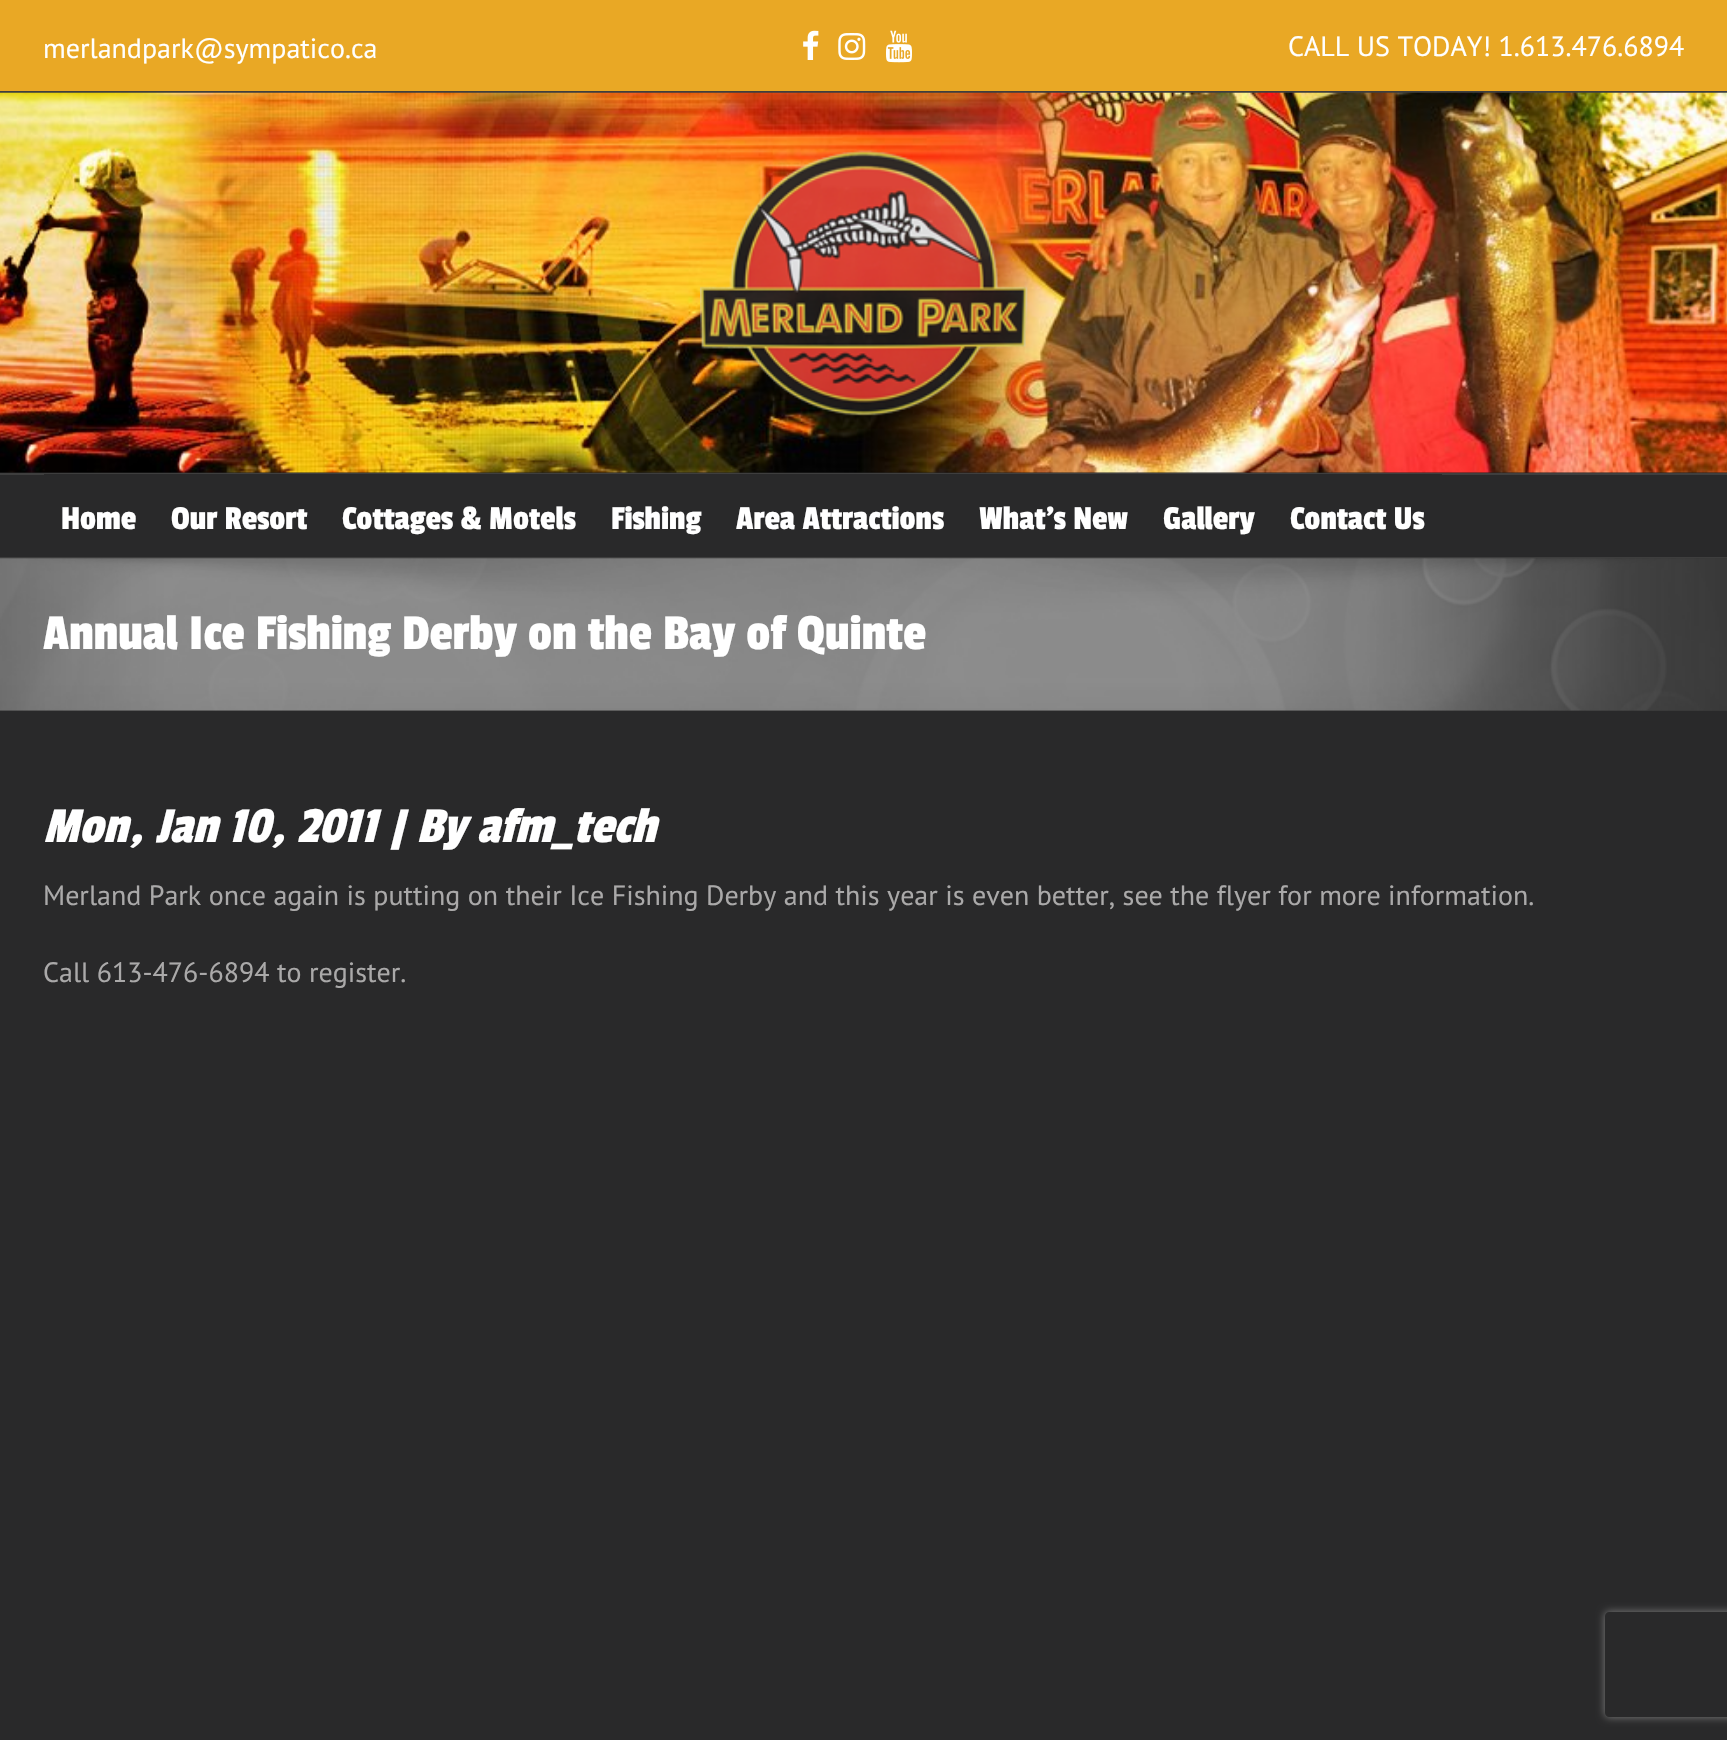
void draw(SkCanvas* canvas) {
    SkPaint paint;
    paint.setAntiAlias(true);
    auto face = [&](const char* family, int weight, float size, bool italic = false) {
        SkFontStyle style(weight, SkFontStyle::kNormal_Width,
            italic ? SkFontStyle::kItalic_Slant : SkFontStyle::kUpright_Slant);
        SkFont result(fontMgr->matchFamilyStyle(family, style), size);
        result.setSubpixel(true);
        return result;
    };
    auto write = [&](const char* s, float x, float y, const SkFont& font, SkColor color) {
        SkPaint ink(SkColor4f::FromColor(color));
        ink.setAntiAlias(true);
        canvas->drawString(s, x, y, font, ink);
    };
    auto block = [&](float x, float y, float w, float h, SkColor color) {
        SkPaint ink(SkColor4f::FromColor(color));
        ink.setAntiAlias(true);
        canvas->drawRect(SkRect::MakeXYWH(x, y, w, h), ink);
    };
    auto paste = [&](const char* path, float x, float y, float w, float h) {
        auto image = SkImages::DeferredFromEncodedData(SkData::MakeFromFileName(path));
        canvas->drawImageRect(image, SkRect::MakeXYWH(x, y, w, h), SkSamplingOptions());
    };
    canvas->clear(SkColorSetRGB(36, 36, 36));
    block(0, 0, 1727, 91, SkColorSetRGB(233, 168, 37));
    block(0, 91, 1727, 2, SkColorSetRGB(62, 62, 62));
    auto kFont1 = face("PT Sans", 400, 28);
    write("merlandpark@sympatico.ca", 43, 58, kFont1, SK_ColorWHITE);
    paste("pic1.png", 803, 30, 16, 30);
    paste("pic2.png", 838, 33, 28, 27);
    paste("pic3.png", 886, 30, 26, 33);
    write("CALL US TODAY! 1.613.476.6894", 1288, 56, kFont1, SK_ColorWHITE);
    paste("pic4.png", 0, 92, 1727, 381);
    paste("pic5.png", 700, 150, 328, 266);
    block(0, 475, 1727, 82, SkColorSetRGB(41, 41, 42));
    block(0, 473, 1727, 2, SkColorSetRGB(62, 62, 62));
    block(0, 557, 1727, 1, SkColorSetRGB(62, 62, 62));
    block(44, 474, 1398, 1, SkColorSetRGB(41, 41, 42));
    auto kFont2 = face("Passion One", 400, 35);
    write("Home", 61, 529, kFont2, SK_ColorWHITE);
    write("Our Resort", 171, 529, kFont2, SK_ColorWHITE);
    write("Cottages & Motels", 342, 529, kFont2, SK_ColorWHITE);
    write("Fishing", 611, 529, kFont2, SK_ColorWHITE);
    write("Area Attractions", 736, 529, kFont2, SK_ColorWHITE);
    write("What’s New", 979, 529, kFont2, SK_ColorWHITE);
    write("Gallery", 1163, 529, kFont2, SK_ColorWHITE);
    write("Contact Us", 1290, 529, kFont2, SK_ColorWHITE);
    block(0, 711, 1727, 1029, SkColorSetRGB(41, 41, 42));
    block(0, 558, 1727, 153, SkColorSetRGB(53, 53, 53));
    paste("pic6.png", 0, 558, 1727, 153);
    auto kFont3 = face("Passion One", 400, 52.5f);
    write("Annual Ice Fishing Derby on the Bay of Quinte", 43, 649, kFont3, SK_ColorWHITE);
    auto kFont4 = face("Passion One", 400, 52.5f, true);
    write("Mon, Jan 10, 2011 | By afm_tech", 43, 842, kFont4, SK_ColorWHITE);
    write("Merland Park once again is putting on their Ice Fishing Derby and this year is even better, see the flyer for more information.", 43, 905, kFont1, SkColorSetRGB(170, 169, 169));
    write("Call 613-476-6894 to register.", 43, 982, kFont1, SkColorSetRGB(170, 169, 169));
    canvas->save();
    canvas->clipPath(SkPathBuilder(SkPathFillType::kEvenOdd).moveTo(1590, 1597).lineTo(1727, 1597).lineTo(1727, 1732).lineTo(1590, 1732).close().moveTo(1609, 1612).lineTo(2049, 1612).cubicTo(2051, 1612, 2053, 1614, 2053, 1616).lineTo(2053, 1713).cubicTo(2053, 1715, 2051, 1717, 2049, 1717).lineTo(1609, 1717).cubicTo(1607, 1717, 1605, 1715, 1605, 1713).lineTo(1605, 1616).cubicTo(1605, 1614, 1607, 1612, 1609, 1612).close().detach(), true);
    paint.setColor(SkColorSetRGB(128, 128, 128));
    paint.setMaskFilter(SkMaskFilter::MakeBlur(kNormal_SkBlurStyle, 4.5f));
    canvas->drawRoundRect(SkRect::MakeXYWH(1605, 1612, 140, 105), 4, 4, paint);
    paint.setMaskFilter(nullptr);
    canvas->restore();
}
